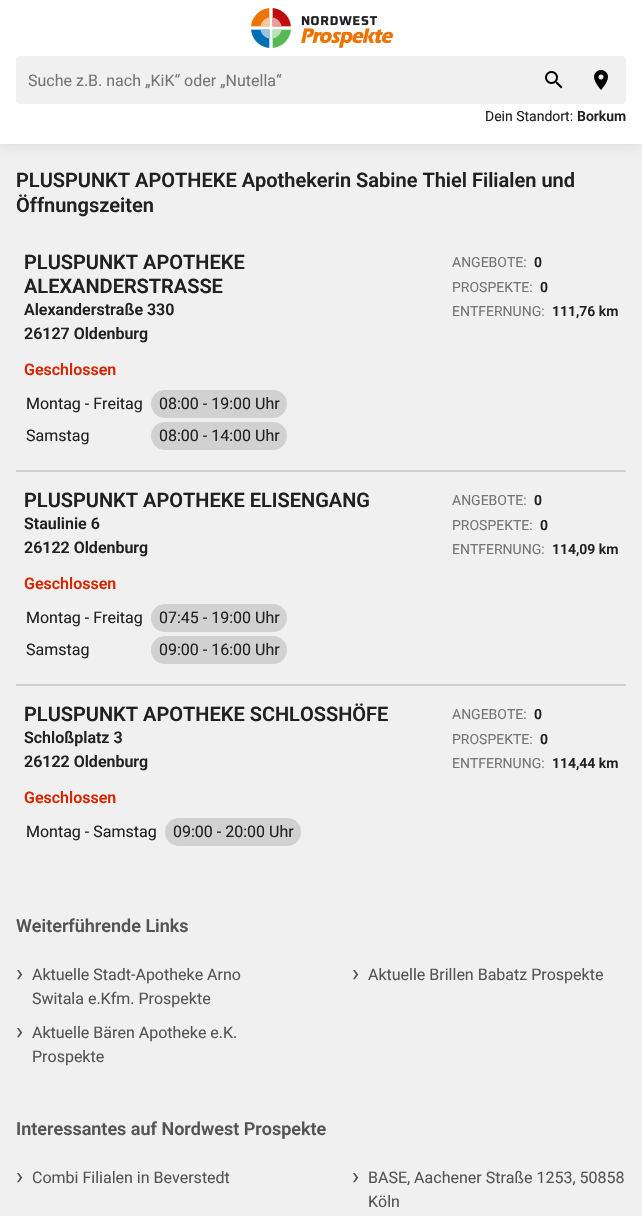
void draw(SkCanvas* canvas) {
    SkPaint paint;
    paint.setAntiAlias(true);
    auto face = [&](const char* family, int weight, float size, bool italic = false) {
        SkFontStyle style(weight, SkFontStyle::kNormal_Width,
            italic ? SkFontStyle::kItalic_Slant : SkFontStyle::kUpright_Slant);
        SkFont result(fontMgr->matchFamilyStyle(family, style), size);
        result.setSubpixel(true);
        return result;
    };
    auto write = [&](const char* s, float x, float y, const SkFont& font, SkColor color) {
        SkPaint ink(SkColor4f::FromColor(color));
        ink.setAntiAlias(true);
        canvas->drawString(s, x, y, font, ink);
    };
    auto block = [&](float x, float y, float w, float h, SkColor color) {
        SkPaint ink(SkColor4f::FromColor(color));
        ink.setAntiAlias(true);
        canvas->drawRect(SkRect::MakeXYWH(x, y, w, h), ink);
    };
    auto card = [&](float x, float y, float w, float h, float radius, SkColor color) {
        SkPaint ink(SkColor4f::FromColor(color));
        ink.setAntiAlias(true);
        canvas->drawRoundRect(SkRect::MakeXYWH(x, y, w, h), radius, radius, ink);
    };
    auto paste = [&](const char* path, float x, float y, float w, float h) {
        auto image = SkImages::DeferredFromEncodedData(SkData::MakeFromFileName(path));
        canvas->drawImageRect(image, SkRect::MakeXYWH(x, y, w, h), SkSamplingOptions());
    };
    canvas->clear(SkColorSetRGB(240, 240, 240));
    paint.setColor(SkColorSetARGB(26, 33, 33, 33));
    paint.setMaskFilter(SkMaskFilter::MakeBlur(kNormal_SkBlurStyle, 6));
    canvas->drawRect(SkRect::MakeXYWH(0, 2, 642, 144), paint);
    paint.setMaskFilter(nullptr);
    block(0, 0, 642, 144, SK_ColorWHITE);
    paste("pic1.png", 251, 8, 40, 40);
    paste("pic2.png", 301, 16, 92, 32);
    card(16, 56, 610, 48, 4, SkColorSetRGB(240, 240, 240));
    auto kFont1 = face("Roboto", 400, 16);
    write("Suche z.B. nach „KiK“ oder „Nutella“", 28, 86, kFont1, SkColorSetRGB(117, 117, 117));
    paste("pic3.png", 545, 71, 18, 18);
    paste("pic4.png", 594, 70, 14, 20);
    auto kFont2 = face("Roboto", 400, 14);
    write("Dein Standort:", 485, 121, kFont2, SkColorSetRGB(33, 33, 33));
    auto kFont3 = face("Roboto", 600, 14);
    write("Borkum", 577, 121, kFont3, SkColorSetRGB(33, 33, 33));
    auto kFont4 = face("Roboto", 600, 20);
    write("PLUSPUNKT APOTHEKE Apothekerin Sabine Thiel Filialen und", 16, 187, kFont4, SkColorSetRGB(33, 33, 33));
    write("Öffnungszeiten", 16, 212, kFont4, SkColorSetRGB(33, 33, 33));
    write("PLUSPUNKT APOTHEKE", 24, 269, kFont4, SkColorSetRGB(33, 33, 33));
    write("ALEXANDERSTRASSE", 24, 293, kFont4, SkColorSetRGB(33, 33, 33));
    auto kFont5 = face("Roboto", 600, 16);
    write("Alexanderstraße 330", 24, 315, kFont5, SkColorSetRGB(33, 33, 33));
    write("26127 Oldenburg", 24, 339, kFont5, SkColorSetRGB(33, 33, 33));
    write("ANGEBOTE:", 452, 267, kFont2, SkColorSetRGB(117, 117, 117));
    write("0", 534, 267, kFont3, SkColorSetRGB(33, 33, 33));
    write("PROSPEKTE:", 452, 292, kFont2, SkColorSetRGB(117, 117, 117));
    write("0", 540, 292, kFont3, SkColorSetRGB(33, 33, 33));
    write("ENTFERNUNG:", 452, 316, kFont2, SkColorSetRGB(117, 117, 117));
    write("111,76 km", 552, 316, kFont3, SkColorSetRGB(33, 33, 33));
    write("Geschlossen", 24, 375, kFont5, SkColorSetRGB(214, 39, 0));
    write("Montag - Freitag", 26, 409, kFont1, SkColorSetRGB(33, 33, 33));
    card(151, 390, 136, 28, 14, SkColorSetRGB(209, 209, 209));
    write("08:00 - 19:00 Uhr", 159, 409, kFont1, SkColorSetRGB(33, 33, 33));
    write("Samstag", 26, 441, kFont1, SkColorSetRGB(33, 33, 33));
    card(151, 422, 136, 28, 14, SkColorSetRGB(209, 209, 209));
    write("08:00 - 14:00 Uhr", 159, 441, kFont1, SkColorSetRGB(33, 33, 33));
    block(16, 470, 610, 2, SkColorSetRGB(209, 209, 209));
    write("PLUSPUNKT APOTHEKE ELISENGANG", 24, 507, kFont4, SkColorSetRGB(33, 33, 33));
    write("Staulinie 6", 24, 529, kFont5, SkColorSetRGB(33, 33, 33));
    write("26122 Oldenburg", 24, 553, kFont5, SkColorSetRGB(33, 33, 33));
    write("ANGEBOTE:", 452, 505, kFont2, SkColorSetRGB(117, 117, 117));
    write("0", 534, 505, kFont3, SkColorSetRGB(33, 33, 33));
    write("PROSPEKTE:", 452, 530, kFont2, SkColorSetRGB(117, 117, 117));
    write("0", 540, 530, kFont3, SkColorSetRGB(33, 33, 33));
    write("ENTFERNUNG:", 452, 554, kFont2, SkColorSetRGB(117, 117, 117));
    write("114,09 km", 552, 554, kFont3, SkColorSetRGB(33, 33, 33));
    write("Geschlossen", 24, 589, kFont5, SkColorSetRGB(214, 39, 0));
    write("Montag - Freitag", 26, 623, kFont1, SkColorSetRGB(33, 33, 33));
    card(151, 604, 136, 28, 14, SkColorSetRGB(209, 209, 209));
    write("07:45 - 19:00 Uhr", 159, 623, kFont1, SkColorSetRGB(33, 33, 33));
    write("Samstag", 26, 655, kFont1, SkColorSetRGB(33, 33, 33));
    card(151, 636, 136, 28, 14, SkColorSetRGB(209, 209, 209));
    write("09:00 - 16:00 Uhr", 159, 655, kFont1, SkColorSetRGB(33, 33, 33));
    block(16, 684, 610, 2, SkColorSetRGB(209, 209, 209));
    write("PLUSPUNKT APOTHEKE SCHLOSSHÖFE", 24, 721, kFont4, SkColorSetRGB(33, 33, 33));
    write("Schloßplatz 3", 24, 743, kFont5, SkColorSetRGB(33, 33, 33));
    write("26122 Oldenburg", 24, 767, kFont5, SkColorSetRGB(33, 33, 33));
    write("ANGEBOTE:", 452, 719, kFont2, SkColorSetRGB(117, 117, 117));
    write("0", 534, 719, kFont3, SkColorSetRGB(33, 33, 33));
    write("PROSPEKTE:", 452, 744, kFont2, SkColorSetRGB(117, 117, 117));
    write("0", 540, 744, kFont3, SkColorSetRGB(33, 33, 33));
    write("ENTFERNUNG:", 452, 768, kFont2, SkColorSetRGB(117, 117, 117));
    write("114,44 km", 552, 768, kFont3, SkColorSetRGB(33, 33, 33));
    write("Geschlossen", 24, 803, kFont5, SkColorSetRGB(214, 39, 0));
    write("Montag - Samstag", 26, 837, kFont1, SkColorSetRGB(33, 33, 33));
    card(165, 818, 136, 28, 14, SkColorSetRGB(209, 209, 209));
    write("09:00 - 20:00 Uhr", 173, 837, kFont1, SkColorSetRGB(33, 33, 33));
    auto kFont6 = face("Roboto", 600, 18);
    write("Weiterführende Links", 16, 932, kFont6, SkColorSetRGB(84, 84, 84));
    auto kFont7 = face("Roboto", 400, 24);
    write("›", 16, 981, kFont7, SkColorSetRGB(84, 84, 84));
    write("Aktuelle Stadt-Apotheke Arno", 32, 980, kFont1, SkColorSetRGB(84, 84, 84));
    write("Switala e.Kfm. Prospekte", 32, 1004, kFont1, SkColorSetRGB(84, 84, 84));
    write("›", 352, 981, kFont7, SkColorSetRGB(84, 84, 84));
    write("Aktuelle Brillen Babatz Prospekte", 368, 980, kFont1, SkColorSetRGB(84, 84, 84));
    write("›", 16, 1039, kFont7, SkColorSetRGB(84, 84, 84));
    write("Aktuelle Bären Apotheke e.K.", 32, 1038, kFont1, SkColorSetRGB(84, 84, 84));
    write("Prospekte", 32, 1062, kFont1, SkColorSetRGB(84, 84, 84));
    write("Interessantes auf Nordwest Prospekte", 16, 1135, kFont6, SkColorSetRGB(84, 84, 84));
    write("›", 16, 1184, kFont7, SkColorSetRGB(84, 84, 84));
    write("Combi Filialen in Beverstedt", 32, 1183, kFont1, SkColorSetRGB(84, 84, 84));
    write("›", 352, 1184, kFont7, SkColorSetRGB(84, 84, 84));
    write("BASE, Aachener Straße 1253, 50858", 368, 1183, kFont1, SkColorSetRGB(84, 84, 84));
    write("Köln", 368, 1207, kFont1, SkColorSetRGB(84, 84, 84));
}
